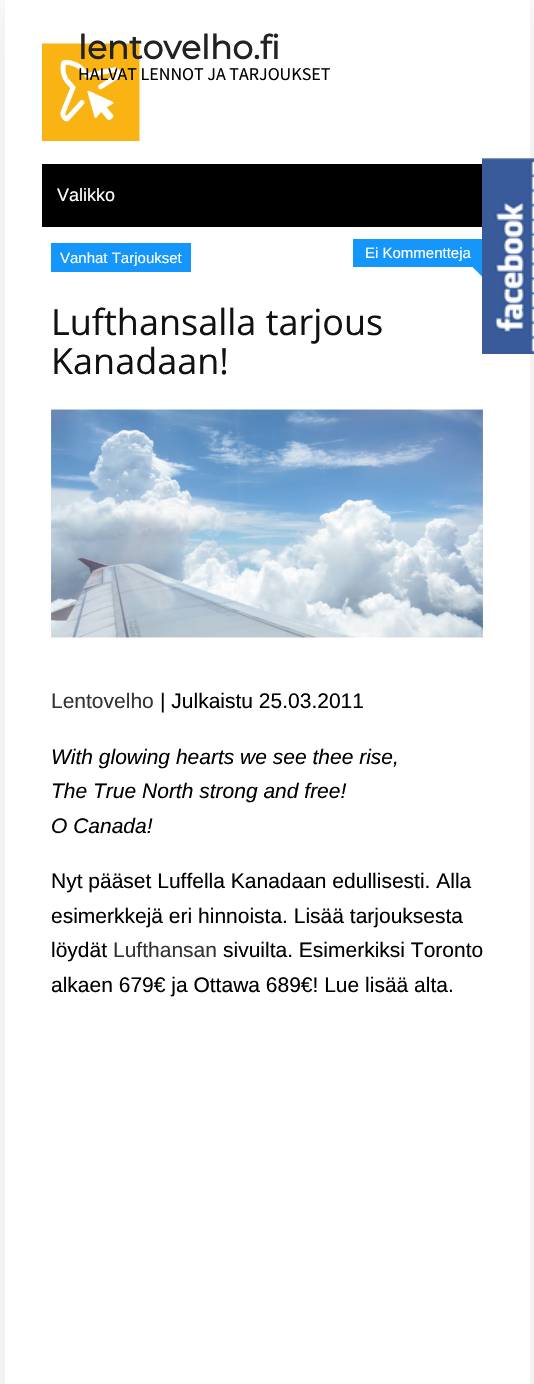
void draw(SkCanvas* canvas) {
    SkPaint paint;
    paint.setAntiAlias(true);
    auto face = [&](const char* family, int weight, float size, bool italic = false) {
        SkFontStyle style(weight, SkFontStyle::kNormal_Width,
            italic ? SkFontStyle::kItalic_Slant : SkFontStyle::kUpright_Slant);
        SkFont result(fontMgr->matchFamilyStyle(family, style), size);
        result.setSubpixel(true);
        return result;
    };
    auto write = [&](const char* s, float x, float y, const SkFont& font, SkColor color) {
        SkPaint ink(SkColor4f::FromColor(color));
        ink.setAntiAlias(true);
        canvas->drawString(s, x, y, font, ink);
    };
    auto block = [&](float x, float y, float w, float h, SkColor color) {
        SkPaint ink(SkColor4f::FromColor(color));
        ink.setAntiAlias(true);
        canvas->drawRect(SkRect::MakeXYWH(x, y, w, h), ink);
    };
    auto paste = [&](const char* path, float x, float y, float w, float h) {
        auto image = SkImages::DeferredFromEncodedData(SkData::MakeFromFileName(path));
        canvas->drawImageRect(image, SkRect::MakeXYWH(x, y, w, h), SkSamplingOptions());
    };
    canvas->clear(SK_ColorWHITE);
    paint.setColor(SkColorSetARGB(26, 0, 0, 0));
    paint.setMaskFilter(SkMaskFilter::MakeBlur(kNormal_SkBlurStyle, 22.5f));
    canvas->drawRect(SkRect::MakeXYWH(5, 0, 525, 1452), paint);
    paint.setMaskFilter(nullptr);
    block(5, 0, 525, 1384, SK_ColorWHITE);
    paste("pic1.png", 42, 43, 98, 98);
    auto kFont1 = face("Montserrat", 700, 33);
    write("lentovelho.fi", 78, 59, kFont1, SkColorSetRGB(34, 34, 34));
    auto kFont2 = face("Source Sans Pro", 400, 18);
    write("HALVAT LENNOT JA TARJOUKSET", 78, 80, kFont2, SK_ColorBLACK);
    block(42, 164, 440, 63, SK_ColorBLACK);
    auto kFont3 = face("Liberation Sans", 400, 18);
    write("Valikko", 57, 201, kFont3, SK_ColorWHITE);
    block(51, 243, 140, 29, SkColorSetRGB(20, 150, 250));
    auto kFont4 = face("Liberation Sans", 400, 15);
    write("Vanhat Tarjoukset", 60, 263, kFont4, SK_ColorWHITE);
    block(353, 239, 129, 28, SkColorSetRGB(20, 150, 250));
    write("Ei Kommentteja", 365, 258, kFont4, SK_ColorWHITE);
    paint.setColor(SkColorSetRGB(20, 150, 250));
    canvas->drawPath(SkPathBuilder().moveTo(483, 267).lineTo(483, 277.5f).lineTo(472.5f, 267).close().detach(), paint);
    auto kFont5 = face("Open Sans", 400, 36);
    write("Lufthansalla tarjous", 51, 335, kFont5, SkColorSetRGB(17, 17, 17));
    write("Kanadaan!", 51, 374, kFont5, SkColorSetRGB(17, 17, 17));
    paste("pic2.png", 51, 409, 432, 229);
    auto kFont6 = face("Liberation Sans", 400, 21);
    write("Lentovelho", 51, 708, kFont6, SkColorSetRGB(51, 51, 51));
    write("| Julkaistu 25.03.2011", 160, 708, kFont6, SK_ColorBLACK);
    auto kFont7 = face("Liberation Sans", 400, 21, true);
    write("With glowing hearts we see thee rise,", 51, 764, kFont7, SK_ColorBLACK);
    write("The True North strong and free!", 51, 798, kFont7, SK_ColorBLACK);
    write("O Canada!", 51, 833, kFont7, SK_ColorBLACK);
    write("Nyt pääset Luffella Kanadaan edullisesti. Alla", 51, 888, kFont6, SK_ColorBLACK);
    write("esimerkkejä eri hinnoista. Lisää tarjouksesta", 51, 923, kFont6, SK_ColorBLACK);
    write("löydät", 51, 957, kFont6, SK_ColorBLACK);
    write("Lufthansan", 113, 957, kFont6, SkColorSetRGB(51, 51, 51));
    write("sivuilta. Esimerkiksi Toronto", 223, 957, kFont6, SK_ColorBLACK);
    write("alkaen 679€ ja Ottawa 689€! Lue lisää alta.", 51, 992, kFont6, SK_ColorBLACK);
    paste("pic3.png", 482, 158, 52, 196);
}
